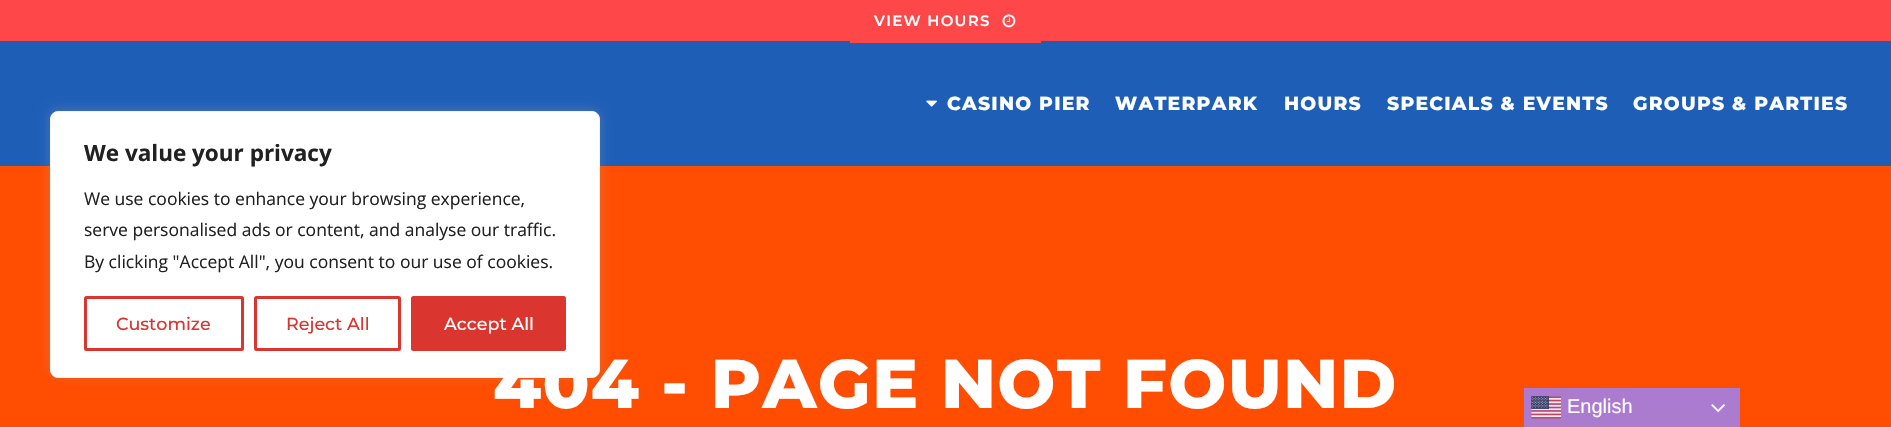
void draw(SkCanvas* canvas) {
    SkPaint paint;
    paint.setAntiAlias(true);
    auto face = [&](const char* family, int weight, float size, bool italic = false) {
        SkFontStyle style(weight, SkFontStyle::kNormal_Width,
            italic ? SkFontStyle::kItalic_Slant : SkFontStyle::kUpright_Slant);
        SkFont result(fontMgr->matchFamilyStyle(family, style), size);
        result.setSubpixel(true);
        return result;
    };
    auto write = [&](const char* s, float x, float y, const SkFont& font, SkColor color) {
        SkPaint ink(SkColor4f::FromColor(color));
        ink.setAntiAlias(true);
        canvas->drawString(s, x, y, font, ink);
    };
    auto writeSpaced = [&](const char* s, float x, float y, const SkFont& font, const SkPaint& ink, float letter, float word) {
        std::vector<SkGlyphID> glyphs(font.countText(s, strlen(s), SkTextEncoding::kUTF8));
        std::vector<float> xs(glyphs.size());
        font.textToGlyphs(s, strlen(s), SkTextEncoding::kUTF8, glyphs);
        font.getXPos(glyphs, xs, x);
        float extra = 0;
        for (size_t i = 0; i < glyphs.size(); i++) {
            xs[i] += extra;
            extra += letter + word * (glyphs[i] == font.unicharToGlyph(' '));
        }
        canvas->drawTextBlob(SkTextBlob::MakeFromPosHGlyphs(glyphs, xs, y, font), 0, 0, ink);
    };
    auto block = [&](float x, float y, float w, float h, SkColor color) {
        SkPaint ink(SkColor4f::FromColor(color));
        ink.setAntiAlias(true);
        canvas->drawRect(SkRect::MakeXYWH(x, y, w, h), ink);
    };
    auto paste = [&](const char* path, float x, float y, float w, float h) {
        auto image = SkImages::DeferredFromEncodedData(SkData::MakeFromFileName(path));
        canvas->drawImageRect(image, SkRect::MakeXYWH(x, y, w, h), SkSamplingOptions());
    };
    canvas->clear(SkColorSetRGB(255, 77, 1));
    block(0, 41, 1891, 125, SkColorSetRGB(30, 94, 183));
    paint.setColor(SkColorSetARGB(77, 172, 171, 171));
    paint.setMaskFilter(SkMaskFilter::MakeBlur(kNormal_SkBlurStyle, 6));
    canvas->drawRoundRect(SkRect::MakeXYWH(50, 110, 550, 266), 8, 8, paint);
    paint.setMaskFilter(nullptr);
    paint.setColor(SK_ColorWHITE);
    canvas->drawRoundRect(SkRect::MakeXYWH(50.5f, 111.5f, 549, 266), 7.5f, 7.5f, paint);
    paint.setStyle(SkPaint::kStroke_Style);
    paint.setStrokeWidth(1);
    paint.setColor(SkColorSetRGB(244, 244, 244));
    canvas->drawRoundRect(SkRect::MakeXYWH(50.5f, 111.5f, 549, 266), 7.5f, 7.5f, paint);
    auto kFont1 = face("Open Sans", 700, 22.5f);
    write("We value your privacy", 84, 161, kFont1, SkColorSetRGB(33, 33, 33));
    auto kFont2 = face("Open Sans", 400, 17.5f);
    write("We use cookies to enhance your browsing experience,", 84, 205, kFont2, SkColorSetRGB(33, 33, 33));
    write("serve personalised ads or content, and analyse our traffic.", 84, 236, kFont2, SkColorSetRGB(33, 33, 33));
    write("By clicking \"Accept All\", you consent to our use of cookies.", 84, 268, kFont2, SkColorSetRGB(33, 33, 33));
    paint.setStrokeWidth(3);
    paint.setColor(SkColorSetRGB(218, 53, 46));
    canvas->drawRoundRect(SkRect::MakeXYWH(85.5f, 297.5f, 157, 52), 1, 1, paint);
    auto kFont3 = face("Montserrat", 500, 17.5f);
    write("Customize", 116, 330, kFont3, SkColorSetRGB(218, 53, 46));
    canvas->drawRoundRect(SkRect::MakeXYWH(255.5f, 297.5f, 144, 52), 1, 1, paint);
    write("Reject All", 286, 330, kFont3, SkColorSetRGB(218, 53, 46));
    paint.setStyle(SkPaint::kFill_Style);
    canvas->drawRoundRect(SkRect::MakeXYWH(412.5f, 297.5f, 152, 52), 1, 1, paint);
    paint.setStyle(SkPaint::kStroke_Style);
    canvas->drawRoundRect(SkRect::MakeXYWH(412.5f, 297.5f, 152, 52), 1, 1, paint);
    write("Accept All", 444, 330, kFont3, SK_ColorWHITE);
    block(0, 0, 1891, 41, SkColorSetRGB(254, 71, 72));
    block(850, 41, 191, 2, SkColorSetRGB(254, 71, 72));
    auto kFont4 = face("Montserrat", 600, 15);
    paint.setStyle(SkPaint::kFill_Style);
    paint.setColor(SK_ColorWHITE);
    writeSpaced("VIEW HOURS", 874, 26, kFont4, paint, 1.25f, 0);
    paste("pic1.png", 1002, 14, 14, 14);
    paste("pic2.png", 926, 100, 11, 7);
    auto kFont5 = face("Montserrat", 800, 18.75f);
    writeSpaced("CASINO PIER", 947, 110, kFont5, paint, 1.25f, 0);
    writeSpaced("WATERPARK", 1115, 110, kFont5, paint, 1.25f, 0);
    writeSpaced("HOURS", 1284, 110, kFont5, paint, 1.25f, 0);
    writeSpaced("SPECIALS & EVENTS", 1387, 110, kFont5, paint, 1.25f, 0);
    writeSpaced("GROUPS & PARTIES", 1633, 110, kFont5, paint, 1.25f, 0);
    auto kFont6 = face("Montserrat", 800, 68.75f);
    writeSpaced("404 - PAGE NOT FOUND", 493, 408, kFont6, paint, 1.25f, 0);
    block(1524, 388, 216, 39, SkColorSetRGB(171, 123, 208));
    paste("pic3.png", 1531, 396, 30, 23);
    auto kFont7 = face("Liberation Sans", 400, 20);
    write("English", 1567, 413, kFont7, SK_ColorWHITE);
    paste("pic4.png", 1711, 404, 14, 9);
}
